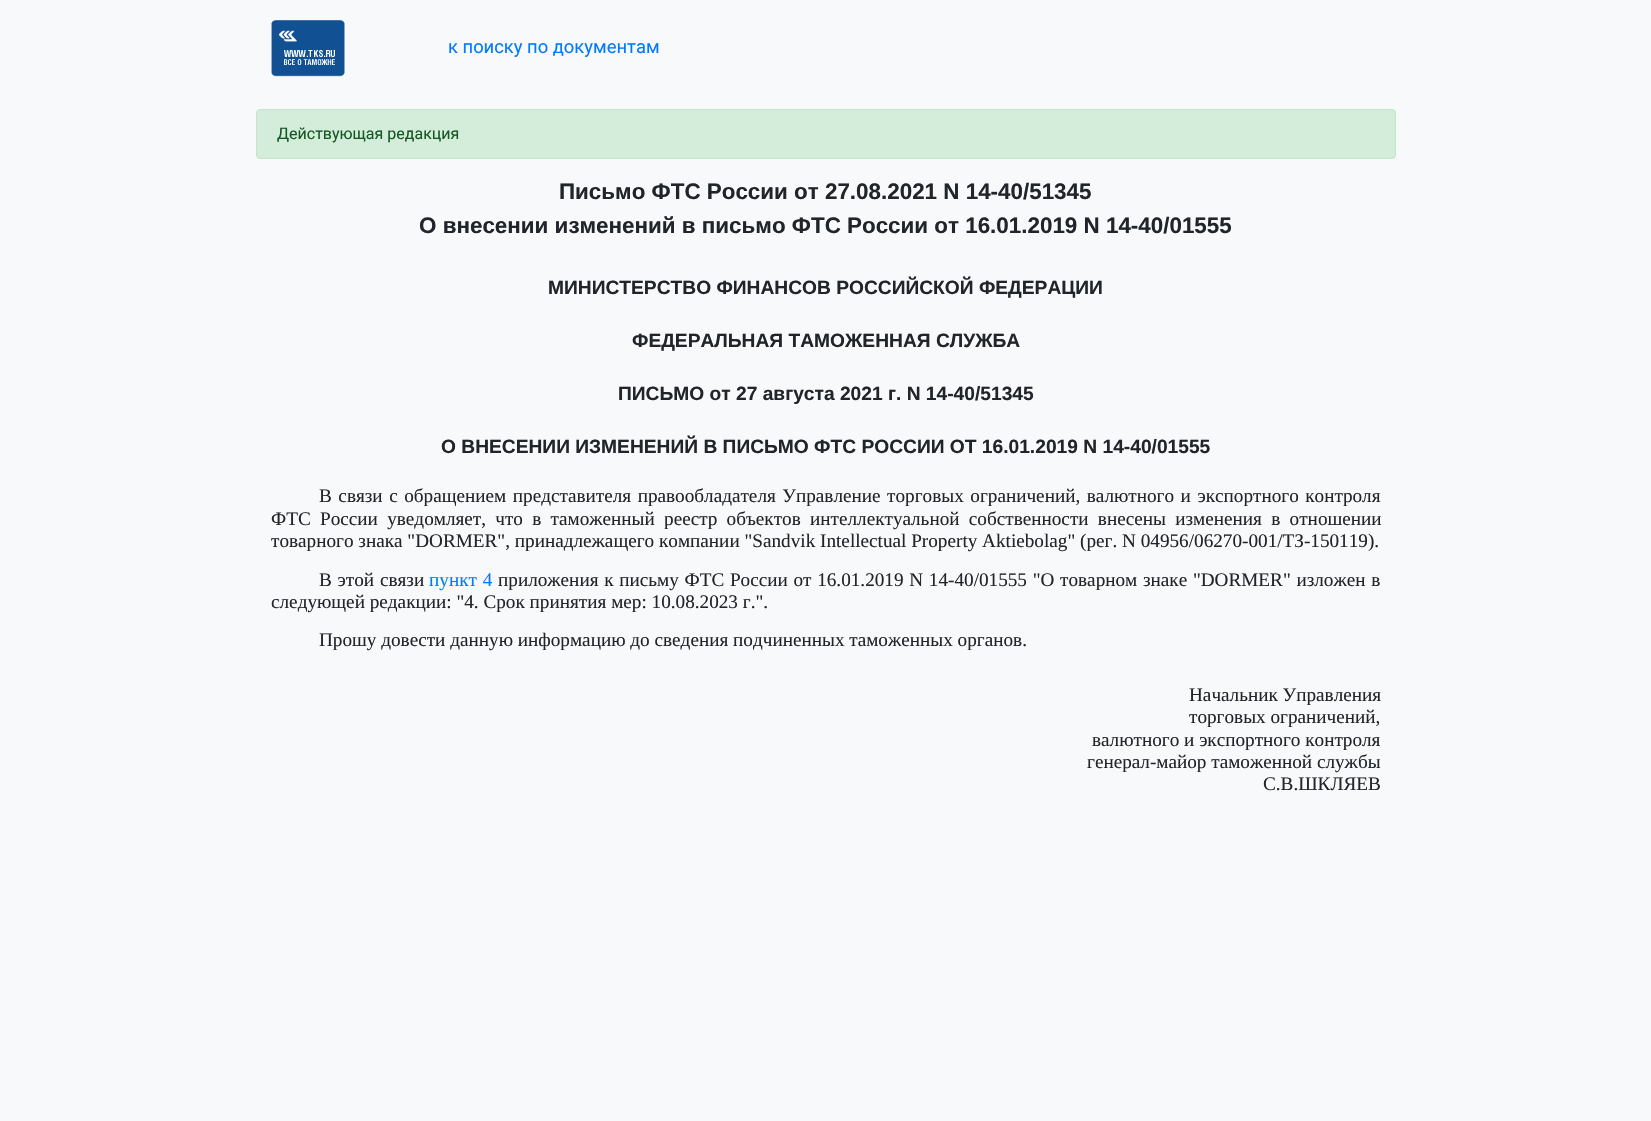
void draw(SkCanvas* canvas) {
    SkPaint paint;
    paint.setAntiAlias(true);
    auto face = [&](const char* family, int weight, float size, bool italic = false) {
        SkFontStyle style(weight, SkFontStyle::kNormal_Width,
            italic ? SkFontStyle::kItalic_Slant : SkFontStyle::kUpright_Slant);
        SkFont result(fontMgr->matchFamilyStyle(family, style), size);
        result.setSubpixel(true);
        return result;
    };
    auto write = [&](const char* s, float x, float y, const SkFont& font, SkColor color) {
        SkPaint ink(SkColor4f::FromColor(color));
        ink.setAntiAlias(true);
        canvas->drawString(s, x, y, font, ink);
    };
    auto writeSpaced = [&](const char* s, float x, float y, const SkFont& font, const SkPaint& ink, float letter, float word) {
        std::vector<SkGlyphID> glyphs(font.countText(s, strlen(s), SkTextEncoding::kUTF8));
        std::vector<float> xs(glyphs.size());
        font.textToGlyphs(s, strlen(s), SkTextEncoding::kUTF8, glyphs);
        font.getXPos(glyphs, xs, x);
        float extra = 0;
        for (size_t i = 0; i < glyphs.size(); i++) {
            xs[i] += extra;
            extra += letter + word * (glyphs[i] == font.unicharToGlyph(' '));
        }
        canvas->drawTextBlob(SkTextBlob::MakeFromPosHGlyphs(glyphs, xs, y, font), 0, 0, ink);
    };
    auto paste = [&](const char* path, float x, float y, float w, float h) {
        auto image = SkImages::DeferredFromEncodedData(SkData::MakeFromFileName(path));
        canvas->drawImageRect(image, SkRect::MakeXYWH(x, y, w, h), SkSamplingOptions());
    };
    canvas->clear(SkColorSetRGB(248, 249, 250));
    paste("pic1.png", 271, 20, 74, 57);
    auto kFont1 = face("Roboto", 400, 18.4f);
    write("к поиску по документам", 448, 53, kFont1, SkColorSetRGB(0, 123, 255));
    paint.setColor(SkColorSetRGB(212, 237, 218));
    canvas->drawRoundRect(SkRect::MakeXYWH(256.5f, 109.5f, 1139, 49), 3.5f, 3.5f, paint);
    paint.setStyle(SkPaint::kStroke_Style);
    paint.setStrokeWidth(1);
    paint.setColor(SkColorSetRGB(195, 230, 203));
    canvas->drawRoundRect(SkRect::MakeXYWH(256.5f, 109.5f, 1139, 49), 3.5f, 3.5f, paint);
    auto kFont2 = face("Roboto", 400, 16);
    write("Действующая редакция", 277, 139, kFont2, SkColorSetRGB(21, 87, 36));
    auto kFont3 = face("Liberation Sans", 700, 22.4f);
    write("Письмо ФТС России от 27.08.2021 N 14-40/51345", 559, 199, kFont3, SkColorSetRGB(33, 37, 41));
    write("О внесении изменений в письмо ФТС России от 16.01.2019 N 14-40/01555", 419, 233, kFont3, SkColorSetRGB(33, 37, 41));
    auto kFont4 = face("Liberation Sans", 700, 19.2f);
    write("МИНИСТЕРСТВО ФИНАНСОВ РОССИЙСКОЙ ФЕДЕРАЦИИ", 548, 294, kFont4, SkColorSetRGB(33, 37, 41));
    write("ФЕДЕРАЛЬНАЯ ТАМОЖЕННАЯ СЛУЖБА", 632, 347, kFont4, SkColorSetRGB(33, 37, 41));
    write("ПИСЬМО от 27 августа 2021 г. N 14-40/51345", 618, 400, kFont4, SkColorSetRGB(33, 37, 41));
    write("О ВНЕСЕНИИ ИЗМЕНЕНИЙ В ПИСЬМО ФТС РОССИИ ОТ 16.01.2019 N 14-40/01555", 441, 453, kFont4, SkColorSetRGB(33, 37, 41));
    auto kFont5 = face("Liberation Serif", 400, 19.2f);
    paint.setStyle(SkPaint::kFill_Style);
    paint.setColor(SkColorSetRGB(33, 37, 41));
    writeSpaced("В связи с обращением представителя правообладателя Управление торговых ограничений, валютного и экспортного контроля", 319, 502, kFont5, paint, 0, 1.75f);
    writeSpaced("ФТС России уведомляет, что в таможенный реестр объектов интеллектуальной собственности внесены изменения в отношении", 271, 525, kFont5, paint, 0, 4.5f);
    write("товарного знака \"DORMER\", принадлежащего компании \"Sandvik Intellectual Property Aktiebolag\" (рег. N 04956/06270-001/ТЗ-150119).", 271, 547, kFont5, SkColorSetRGB(33, 37, 41));
    writeSpaced("В этой связи", 319, 586, kFont5, paint, 0, 1);
    paint.setColor(SkColorSetRGB(0, 123, 255));
    writeSpaced("пункт 4", 429, 586, kFont5, paint, 0, 1);
    paint.setColor(SkColorSetRGB(33, 37, 41));
    writeSpaced("приложения к письму ФТС России от 16.01.2019 N 14-40/01555 \"О товарном знаке \"DORMER\" изложен в", 498, 586, kFont5, paint, 0, 0.9f);
    write("следующей редакции: \"4. Срок принятия мер: 10.08.2023 г.\".", 271, 608, kFont5, SkColorSetRGB(33, 37, 41));
    write("Прошу довести данную информацию до сведения подчиненных таможенных органов.", 319, 646, kFont5, SkColorSetRGB(33, 37, 41));
    write("Начальник Управления", 1189, 701, kFont5, SkColorSetRGB(33, 37, 41));
    write("торговых ограничений,", 1189, 723, kFont5, SkColorSetRGB(33, 37, 41));
    write("валютного и экспортного контроля", 1092, 746, kFont5, SkColorSetRGB(33, 37, 41));
    write("генерал-майор таможенной службы", 1087, 768, kFont5, SkColorSetRGB(33, 37, 41));
    write("С.В.ШКЛЯЕВ", 1263, 790, kFont5, SkColorSetRGB(33, 37, 41));
}
